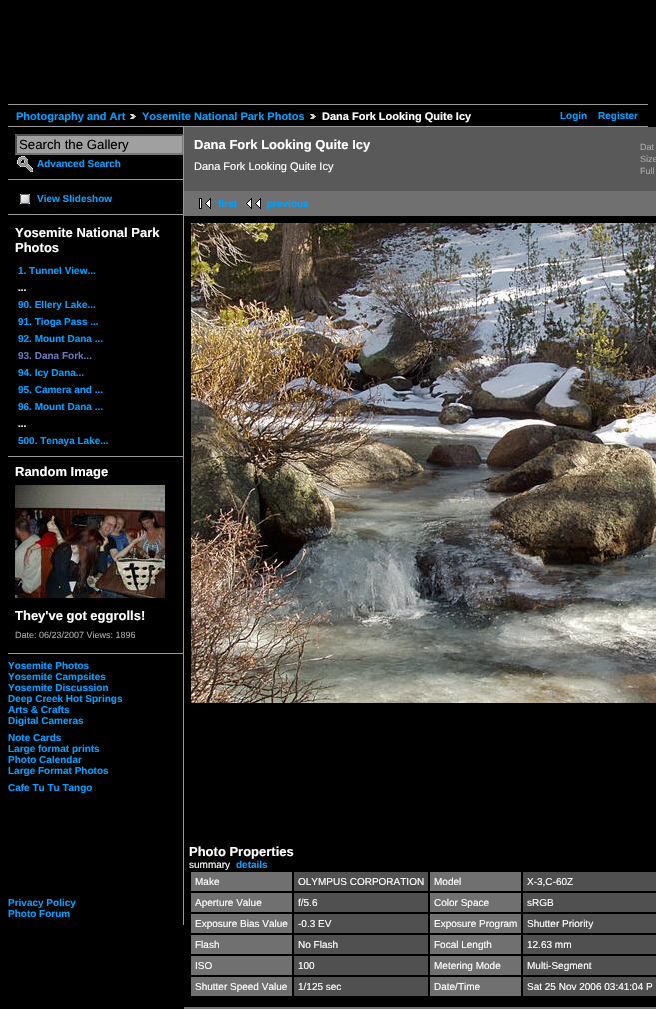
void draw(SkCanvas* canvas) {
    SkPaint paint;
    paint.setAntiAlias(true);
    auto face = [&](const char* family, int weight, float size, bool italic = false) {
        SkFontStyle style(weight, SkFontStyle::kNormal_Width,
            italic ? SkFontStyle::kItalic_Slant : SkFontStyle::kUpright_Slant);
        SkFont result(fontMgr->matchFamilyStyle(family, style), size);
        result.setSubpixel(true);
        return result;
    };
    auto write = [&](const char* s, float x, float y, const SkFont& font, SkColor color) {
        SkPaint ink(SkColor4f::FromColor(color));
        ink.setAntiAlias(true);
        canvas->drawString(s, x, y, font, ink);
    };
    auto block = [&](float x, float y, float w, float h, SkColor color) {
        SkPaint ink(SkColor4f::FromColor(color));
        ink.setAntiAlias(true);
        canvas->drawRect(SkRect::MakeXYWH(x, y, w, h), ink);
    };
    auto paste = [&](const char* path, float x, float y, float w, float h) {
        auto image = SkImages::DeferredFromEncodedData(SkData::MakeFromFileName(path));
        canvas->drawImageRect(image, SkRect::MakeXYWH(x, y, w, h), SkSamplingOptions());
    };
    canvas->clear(SK_ColorBLACK);
    block(8, 104, 640, 1, SkColorSetRGB(153, 153, 153));
    block(8, 126, 640, 1, SkColorSetRGB(153, 153, 153));
    auto kFont1 = face("Liberation Sans", 700, 11);
    write("Photography and Art", 16, 120, kFont1, SkColorSetRGB(0, 160, 255));
    paste("pic1.png", 130, 114, 6, 5);
    write("Yosemite National Park Photos", 142, 120, kFont1, SkColorSetRGB(0, 160, 255));
    paste("pic1.png", 310, 114, 6, 5);
    write("Dana Fork Looking Quite Icy", 322, 120, kFont1, SK_ColorWHITE);
    auto kFont2 = face("Liberation Sans", 700, 10);
    write("Login", 560, 119, kFont2, SkColorSetRGB(0, 160, 255));
    write("Register", 598, 119, kFont2, SkColorSetRGB(0, 160, 255));
    block(183, 127, 1, 798, SkColorSetRGB(153, 153, 153));
    block(8, 179, 175, 1, SkColorSetRGB(153, 153, 153));
    block(15, 134, 168, 21, SkColorSetRGB(160, 160, 160));
    paint.setColor(SkColorSetRGB(79, 79, 79));
    canvas->drawPath(SkPathBuilder().moveTo(15, 134).lineTo(184, 134).lineTo(182, 136).lineTo(17, 136).close().detach(), paint);
    canvas->save();
    canvas->clipRect(SkRect::MakeXYWH(8, 127, 175, 798));
    paint.setColor(SkColorSetRGB(118, 118, 118));
    canvas->drawPath(SkPathBuilder().moveTo(184, 134).lineTo(184, 155).lineTo(182, 153).lineTo(182, 136).close().detach(), paint);
    canvas->restore();
    canvas->drawPath(SkPathBuilder().moveTo(184, 155).lineTo(15, 155).lineTo(17, 153).lineTo(182, 153).close().detach(), paint);
    paint.setColor(SkColorSetRGB(79, 79, 79));
    canvas->drawPath(SkPathBuilder().moveTo(15, 155).lineTo(15, 134).lineTo(17, 136).lineTo(17, 153).close().detach(), paint);
    auto kFont3 = face("Liberation Sans", 400, 13.25f);
    write("Search the Gallery", 19, 149, kFont3, SK_ColorBLACK);
    paste("pic2.png", 17, 156, 16, 16);
    write("Advanced Search", 37, 167, kFont2, SkColorSetRGB(0, 160, 255));
    block(8, 214, 175, 1, SkColorSetRGB(153, 153, 153));
    paste("pic3.png", 20, 194, 10, 10);
    write("View Slideshow", 37, 202, kFont2, SkColorSetRGB(0, 160, 255));
    block(8, 456, 175, 1, SkColorSetRGB(153, 153, 153));
    auto kFont4 = face("Liberation Sans", 700, 13);
    write("Yosemite National Park", 15, 237, kFont4, SK_ColorWHITE);
    write("Photos", 15, 252, kFont4, SK_ColorWHITE);
    write("1. Tunnel View...", 18, 274, kFont2, SkColorSetRGB(0, 160, 255));
    write("...", 18, 291, kFont2, SK_ColorWHITE);
    write("90. Ellery Lake...", 18, 308, kFont2, SkColorSetRGB(0, 160, 255));
    write("91. Tioga Pass ...", 18, 325, kFont2, SkColorSetRGB(0, 160, 255));
    write("92. Mount Dana ...", 18, 342, kFont2, SkColorSetRGB(0, 160, 255));
    write("93. Dana Fork...", 18, 359, kFont2, SkColorSetRGB(102, 119, 187));
    write("94. Icy Dana...", 18, 376, kFont2, SkColorSetRGB(0, 160, 255));
    write("95. Camera and ...", 18, 393, kFont2, SkColorSetRGB(0, 160, 255));
    write("96. Mount Dana ...", 18, 410, kFont2, SkColorSetRGB(0, 160, 255));
    write("...", 18, 427, kFont2, SK_ColorWHITE);
    write("500. Tenaya Lake...", 18, 444, kFont2, SkColorSetRGB(0, 160, 255));
    block(8, 653, 175, 1, SkColorSetRGB(153, 153, 153));
    write("Random Image", 15, 476, kFont4, SK_ColorWHITE);
    paste("pic4.png", 15, 485, 150, 113);
    write("They've got eggrolls!", 15, 620, kFont4, SK_ColorWHITE);
    auto kFont5 = face("Liberation Sans", 400, 9);
    write("Date: 06/23/2007 Views: 1896", 15, 638, kFont5, SkColorSetRGB(170, 170, 170));
    write("Yosemite Photos", 8, 669, kFont2, SkColorSetRGB(0, 160, 255));
    write("Yosemite Campsites", 8, 680, kFont2, SkColorSetRGB(0, 160, 255));
    write("Yosemite Discussion", 8, 691, kFont2, SkColorSetRGB(0, 160, 255));
    write("Deep Creek Hot Springs", 8, 702, kFont2, SkColorSetRGB(0, 160, 255));
    write("Arts & Crafts", 8, 713, kFont2, SkColorSetRGB(0, 160, 255));
    write("Digital Cameras", 8, 724, kFont2, SkColorSetRGB(0, 160, 255));
    write("Note Cards", 8, 741, kFont2, SkColorSetRGB(0, 160, 255));
    write("Large format prints", 8, 752, kFont2, SkColorSetRGB(0, 160, 255));
    write("Photo Calendar", 8, 763, kFont2, SkColorSetRGB(0, 160, 255));
    write("Large Format Photos", 8, 774, kFont2, SkColorSetRGB(0, 160, 255));
    write("Cafe Tu Tu Tango", 8, 791, kFont2, SkColorSetRGB(0, 160, 255));
    write("Privacy Policy", 8, 906, kFont2, SkColorSetRGB(0, 160, 255));
    write("Photo Forum", 8, 917, kFont2, SkColorSetRGB(0, 160, 255));
    block(184, 127, 472, 64, SkColorSetRGB(89, 89, 89));
    write("Dana Fork Looking Quite Icy", 194, 149, kFont4, SK_ColorWHITE);
    auto kFont6 = face("Liberation Sans", 400, 11);
    write("Dana Fork Looking Quite Icy", 194, 170, kFont6, SK_ColorWHITE);
    write("Dat", 640, 150, kFont5, SkColorSetRGB(170, 170, 170));
    write("Size", 640, 162, kFont5, SkColorSetRGB(170, 170, 170));
    write("Full", 640, 174, kFont5, SkColorSetRGB(170, 170, 170));
    block(184, 191, 472, 25, SkColorSetRGB(112, 112, 112));
    paste("pic5.png", 199, 198, 12, 11);
    write("first", 218, 207, kFont2, SkColorSetRGB(0, 160, 255));
    paste("pic6.png", 246, 198, 15, 11);
    write("previous", 267, 207, kFont2, SkColorSetRGB(0, 160, 255));
    paste("pic7.png", 191, 223, 465, 480);
    write("Photo Properties", 189, 856, kFont4, SK_ColorWHITE);
    auto kFont7 = face("Liberation Sans", 400, 10);
    write("summary", 189, 868, kFont7, SK_ColorWHITE);
    write("details", 236, 868, kFont2, SkColorSetRGB(0, 160, 255));
    block(191, 872, 101, 19, SkColorSetRGB(112, 112, 112));
    write("Make", 195, 885, kFont7, SK_ColorWHITE);
    block(294, 872, 134, 19, SkColorSetRGB(80, 80, 80));
    write("OLYMPUS CORPORATION", 298, 885, kFont7, SK_ColorWHITE);
    block(430, 872, 91, 19, SkColorSetRGB(112, 112, 112));
    write("Model", 434, 885, kFont7, SK_ColorWHITE);
    block(523, 872, 133, 19, SkColorSetRGB(80, 80, 80));
    write("X-3,C-60Z", 527, 885, kFont7, SK_ColorWHITE);
    block(191, 893, 101, 19, SkColorSetRGB(112, 112, 112));
    write("Aperture Value", 195, 906, kFont7, SK_ColorWHITE);
    block(294, 893, 134, 19, SkColorSetRGB(80, 80, 80));
    write("f/5.6", 298, 906, kFont7, SK_ColorWHITE);
    block(430, 893, 91, 19, SkColorSetRGB(112, 112, 112));
    write("Color Space", 434, 906, kFont7, SK_ColorWHITE);
    block(523, 893, 133, 19, SkColorSetRGB(80, 80, 80));
    write("sRGB", 527, 906, kFont7, SK_ColorWHITE);
    block(191, 914, 101, 19, SkColorSetRGB(112, 112, 112));
    write("Exposure Bias Value", 195, 927, kFont7, SK_ColorWHITE);
    block(294, 914, 134, 19, SkColorSetRGB(80, 80, 80));
    write("-0.3 EV", 298, 927, kFont7, SK_ColorWHITE);
    block(430, 914, 91, 19, SkColorSetRGB(112, 112, 112));
    write("Exposure Program", 434, 927, kFont7, SK_ColorWHITE);
    block(523, 914, 133, 19, SkColorSetRGB(80, 80, 80));
    write("Shutter Priority", 527, 927, kFont7, SK_ColorWHITE);
    block(191, 935, 101, 19, SkColorSetRGB(112, 112, 112));
    write("Flash", 195, 948, kFont7, SK_ColorWHITE);
    block(294, 935, 134, 19, SkColorSetRGB(80, 80, 80));
    write("No Flash", 298, 948, kFont7, SK_ColorWHITE);
    block(430, 935, 91, 19, SkColorSetRGB(112, 112, 112));
    write("Focal Length", 434, 948, kFont7, SK_ColorWHITE);
    block(523, 935, 133, 19, SkColorSetRGB(80, 80, 80));
    write("12.63 mm", 527, 948, kFont7, SK_ColorWHITE);
    block(191, 956, 101, 19, SkColorSetRGB(112, 112, 112));
    write("ISO", 195, 969, kFont7, SK_ColorWHITE);
    block(294, 956, 134, 19, SkColorSetRGB(80, 80, 80));
    write("100", 298, 969, kFont7, SK_ColorWHITE);
    block(430, 956, 91, 19, SkColorSetRGB(112, 112, 112));
    write("Metering Mode", 434, 969, kFont7, SK_ColorWHITE);
    block(523, 956, 133, 19, SkColorSetRGB(80, 80, 80));
    write("Multi-Segment", 527, 969, kFont7, SK_ColorWHITE);
    block(191, 977, 101, 19, SkColorSetRGB(112, 112, 112));
    write("Shutter Speed Value", 195, 990, kFont7, SK_ColorWHITE);
    block(294, 977, 134, 19, SkColorSetRGB(80, 80, 80));
    write("1/125 sec", 298, 990, kFont7, SK_ColorWHITE);
    block(430, 977, 91, 19, SkColorSetRGB(112, 112, 112));
    write("Date/Time", 434, 990, kFont7, SK_ColorWHITE);
    block(523, 977, 133, 19, SkColorSetRGB(80, 80, 80));
    write("Sat 25 Nov 2006 03:41:04 P", 527, 990, kFont7, SK_ColorWHITE);
    block(184, 1007, 472, 2, SkColorSetRGB(112, 112, 112));
}
